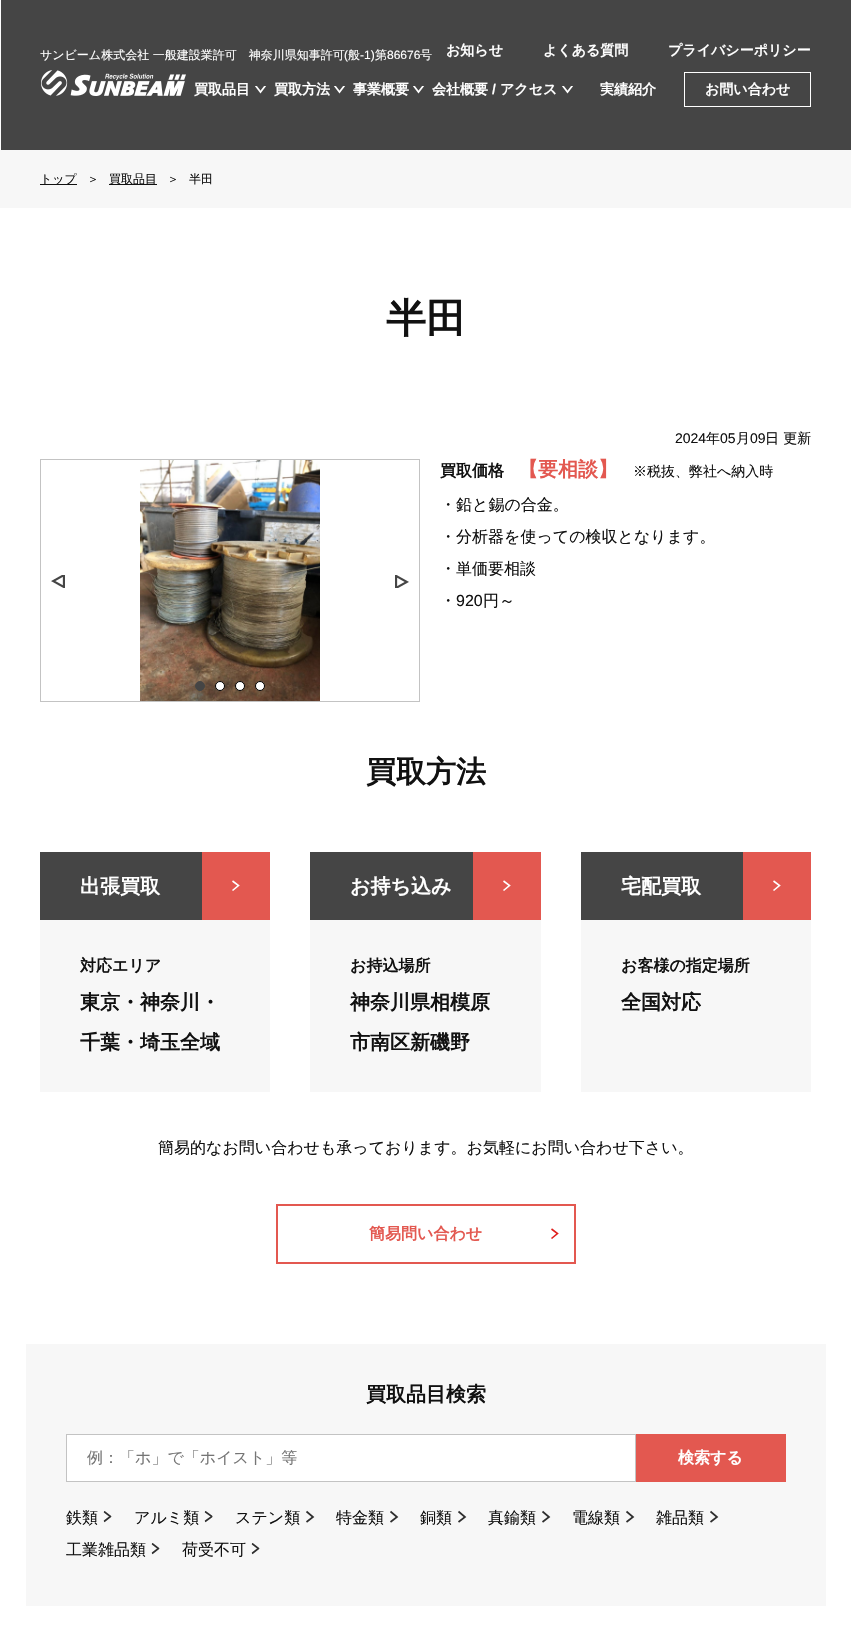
void draw(SkCanvas* canvas) {
    SkPaint paint;
    paint.setAntiAlias(true);
    auto face = [&](const char* family, int weight, float size, bool italic = false) {
        SkFontStyle style(weight, SkFontStyle::kNormal_Width,
            italic ? SkFontStyle::kItalic_Slant : SkFontStyle::kUpright_Slant);
        SkFont result(fontMgr->matchFamilyStyle(family, style), size);
        result.setSubpixel(true);
        return result;
    };
    auto write = [&](const char* s, float x, float y, const SkFont& font, SkColor color) {
        SkPaint ink(SkColor4f::FromColor(color));
        ink.setAntiAlias(true);
        canvas->drawString(s, x, y, font, ink);
    };
    auto block = [&](float x, float y, float w, float h, SkColor color) {
        SkPaint ink(SkColor4f::FromColor(color));
        ink.setAntiAlias(true);
        canvas->drawRect(SkRect::MakeXYWH(x, y, w, h), ink);
    };
    auto paste = [&](const char* path, float x, float y, float w, float h) {
        auto image = SkImages::DeferredFromEncodedData(SkData::MakeFromFileName(path));
        canvas->drawImageRect(image, SkRect::MakeXYWH(x, y, w, h), SkSamplingOptions());
    };
    canvas->clear(SK_ColorWHITE);
    block(1, 0, 850, 150, SkColorSetRGB(69, 69, 69));
    auto kFont1 = face("WenQuanYi Zen Hei", 700, 14);
    write("お知らせ", 446, 55, kFont1, SK_ColorWHITE);
    write("よくある質問", 543, 55, kFont1, SK_ColorWHITE);
    write("プライバシーポリシー", 668, 55, kFont1, SK_ColorWHITE);
    write("買取品目", 194, 94, kFont1, SK_ColorWHITE);
    canvas->save();
    canvas->clipRect(SkRect::MakeXYWH(255, 86, 11, 8));
    paint.setStyle(SkPaint::kStroke_Style);
    paint.setStrokeWidth(1.7f);
    paint.setColor(SK_ColorWHITE);
    canvas->drawPath(SkPathBuilder().moveTo(265.5f, 85.5f).lineTo(260.5f, 92).lineTo(255.5f, 85.5f).detach(), paint);
    canvas->restore();
    write("買取方法", 274, 94, kFont1, SK_ColorWHITE);
    canvas->save();
    canvas->clipRect(SkRect::MakeXYWH(334, 86, 12, 8));
    canvas->drawPath(SkPathBuilder().moveTo(344.5f, 85.5f).lineTo(339.5f, 92).lineTo(334.5f, 85.5f).detach(), paint);
    canvas->restore();
    write("事業概要", 353, 94, kFont1, SK_ColorWHITE);
    canvas->save();
    canvas->clipRect(SkRect::MakeXYWH(413, 86, 12, 8));
    canvas->drawPath(SkPathBuilder().moveTo(423.5f, 85.5f).lineTo(418.5f, 92).lineTo(413.5f, 85.5f).detach(), paint);
    canvas->restore();
    write("会社概要", 432, 94, kFont1, SK_ColorWHITE);
    auto kFont2 = face("Liberation Sans", 700, 14);
    write("/", 492, 94, kFont2, SK_ColorWHITE);
    write("アクセス", 500, 94, kFont1, SK_ColorWHITE);
    canvas->save();
    canvas->clipRect(SkRect::MakeXYWH(562, 86, 11, 8));
    canvas->drawPath(SkPathBuilder().moveTo(572.5f, 85.5f).lineTo(567.5f, 92).lineTo(562.5f, 85.5f).detach(), paint);
    canvas->restore();
    write("実績紹介", 600, 94, kFont1, SK_ColorWHITE);
    paint.setStrokeWidth(1);
    canvas->drawRect(SkRect::MakeXYWH(684.5f, 72.5f, 126, 34), paint);
    write("お問い合わせ", 705, 94, kFont1, SK_ColorWHITE);
    auto kFont3 = face("WenQuanYi Zen Hei", 500, 12);
    write("サンビーム株式会社 一般建設業許可　神奈川県知事許可", 40, 59, kFont3, SK_ColorWHITE);
    auto kFont4 = face("Liberation Sans", 400, 12);
    write("(", 344, 59, kFont4, SK_ColorWHITE);
    write("般", 348, 59, kFont3, SK_ColorWHITE);
    write("‐1)", 360, 59, kFont4, SK_ColorWHITE);
    write("第", 375, 59, kFont3, SK_ColorWHITE);
    write("86676", 387, 59, kFont4, SK_ColorWHITE);
    write("号", 420, 59, kFont3, SK_ColorWHITE);
    paste("pic1.png", 41, 70, 145, 26);
    block(0, 150, 851, 58, SkColorSetRGB(247, 247, 247));
    block(40, 184, 37, 1, SkColorSetRGB(17, 17, 17));
    write("トップ", 40, 183, kFont3, SkColorSetRGB(17, 17, 17));
    write("＞", 87, 183, kFont3, SkColorSetRGB(17, 17, 17));
    block(109, 184, 48, 1, SkColorSetRGB(17, 17, 17));
    write("買取品目", 109, 183, kFont3, SkColorSetRGB(17, 17, 17));
    write("＞", 167, 183, kFont3, SkColorSetRGB(17, 17, 17));
    write("半田", 189, 183, kFont3, SkColorSetRGB(17, 17, 17));
    auto kFont5 = face("WenQuanYi Zen Hei", 700, 40);
    write("半田", 386, 332, kFont5, SkColorSetRGB(17, 17, 17));
    auto kFont6 = face("Liberation Sans", 400, 14);
    write("2024", 675, 443, kFont6, SkColorSetRGB(17, 17, 17));
    auto kFont7 = face("WenQuanYi Zen Hei", 500, 14);
    write("年", 706, 443, kFont7, SkColorSetRGB(17, 17, 17));
    write("05", 720, 443, kFont6, SkColorSetRGB(17, 17, 17));
    write("月", 736, 443, kFont7, SkColorSetRGB(17, 17, 17));
    write("09", 750, 443, kFont6, SkColorSetRGB(17, 17, 17));
    write("日 更新", 765, 443, kFont7, SkColorSetRGB(17, 17, 17));
    paint.setColor(SkColorSetRGB(195, 195, 195));
    canvas->drawRect(SkRect::MakeXYWH(40.5f, 459.5f, 379, 242), paint);
    paste("pic2.png", 140, 460, 180, 241);
    paste("pic3.png", 51, 575, 14, 13);
    paste("pic4.png", 395, 575, 14, 13);
    paint.setStyle(SkPaint::kFill_Style);
    paint.setColor(SkColorSetRGB(69, 69, 69));
    canvas->drawCircle(200, 686, 4.5f, paint);
    paint.setStyle(SkPaint::kStroke_Style);
    canvas->drawCircle(200, 686, 4.5f, paint);
    paint.setStyle(SkPaint::kFill_Style);
    paint.setColor(SK_ColorWHITE);
    canvas->drawCircle(220, 686, 4.5f, paint);
    paint.setStyle(SkPaint::kStroke_Style);
    paint.setColor(SK_ColorBLACK);
    canvas->drawCircle(220, 686, 4.5f, paint);
    paint.setStyle(SkPaint::kFill_Style);
    paint.setColor(SK_ColorWHITE);
    canvas->drawCircle(240, 686, 4.5f, paint);
    paint.setStyle(SkPaint::kStroke_Style);
    paint.setColor(SK_ColorBLACK);
    canvas->drawCircle(240, 686, 4.5f, paint);
    paint.setStyle(SkPaint::kFill_Style);
    paint.setColor(SK_ColorWHITE);
    canvas->drawCircle(260, 686, 4.5f, paint);
    paint.setStyle(SkPaint::kStroke_Style);
    paint.setColor(SK_ColorBLACK);
    canvas->drawCircle(260, 686, 4.5f, paint);
    auto kFont8 = face("WenQuanYi Zen Hei", 700, 16);
    write("買取価格", 440, 476, kFont8, SkColorSetRGB(17, 17, 17));
    auto kFont9 = face("WenQuanYi Zen Hei", 700, 20);
    write("【要相談】", 518, 476, kFont9, SkColorSetRGB(227, 88, 80));
    write("※税抜、弊社へ納入時", 633, 476, kFont7, SkColorSetRGB(17, 17, 17));
    auto kFont10 = face("WenQuanYi Zen Hei", 500, 16);
    write("・鉛と錫の合金。", 440, 510, kFont10, SkColorSetRGB(17, 17, 17));
    write("・分析器を使っての検収となります。", 440, 542, kFont10, SkColorSetRGB(17, 17, 17));
    write("・単価要相談", 440, 574, kFont10, SkColorSetRGB(17, 17, 17));
    write("・", 440, 606, kFont10, SkColorSetRGB(17, 17, 17));
    auto kFont11 = face("Liberation Sans", 400, 16);
    write("920", 456, 606, kFont11, SkColorSetRGB(17, 17, 17));
    write("円～", 483, 606, kFont10, SkColorSetRGB(17, 17, 17));
    auto kFont12 = face("WenQuanYi Zen Hei", 700, 30);
    write("買取方法", 366, 782, kFont12, SkColorSetRGB(17, 17, 17));
    block(40, 852, 162, 68, SkColorSetRGB(69, 69, 69));
    write("出張買取", 80, 893, kFont9, SK_ColorWHITE);
    block(202, 852, 68, 68, SkColorSetRGB(227, 88, 80));
    paint.setStrokeWidth(1.6f);
    paint.setColor(SK_ColorWHITE);
    canvas->drawPath(SkPathBuilder().moveTo(232.5f, 881).lineTo(238.5f, 885.5f).lineTo(232.5f, 890.5f).detach(), paint);
    block(40, 920, 230, 172, SkColorSetRGB(247, 247, 247));
    write("対応エリア", 80, 971, kFont8, SkColorSetRGB(17, 17, 17));
    write("東京・神奈川・", 80, 1009, kFont9, SkColorSetRGB(17, 17, 17));
    write("千葉・埼玉全域", 80, 1049, kFont9, SkColorSetRGB(17, 17, 17));
    block(310, 852, 163, 68, SkColorSetRGB(69, 69, 69));
    write("お持ち込み", 350, 893, kFont9, SK_ColorWHITE);
    block(473, 852, 68, 68, SkColorSetRGB(227, 88, 80));
    canvas->drawPath(SkPathBuilder().moveTo(503.5f, 881).lineTo(509.5f, 885.5f).lineTo(503.5f, 890.5f).detach(), paint);
    block(310, 920, 231, 172, SkColorSetRGB(247, 247, 247));
    write("お持込場所", 350, 971, kFont8, SkColorSetRGB(17, 17, 17));
    write("神奈川県相模原", 350, 1009, kFont9, SkColorSetRGB(17, 17, 17));
    write("市南区新磯野", 350, 1049, kFont9, SkColorSetRGB(17, 17, 17));
    block(581, 852, 162, 68, SkColorSetRGB(69, 69, 69));
    write("宅配買取", 621, 893, kFont9, SK_ColorWHITE);
    block(743, 852, 68, 68, SkColorSetRGB(227, 88, 80));
    canvas->drawPath(SkPathBuilder().moveTo(773.5f, 881).lineTo(779.5f, 885.5f).lineTo(773.5f, 890.5f).detach(), paint);
    block(581, 920, 230, 172, SkColorSetRGB(247, 247, 247));
    write("お客様の指定場所", 621, 971, kFont8, SkColorSetRGB(17, 17, 17));
    write("全国対応", 621, 1009, kFont9, SkColorSetRGB(17, 17, 17));
    write("簡易的なお問い合わせも承っております。お気軽にお問い合わせ下さい。", 158, 1153, kFont10, SkColorSetRGB(17, 17, 17));
    paint.setColor(SkColorSetRGB(223, 31, 28));
    canvas->drawPath(SkPathBuilder().moveTo(551.5f, 1229).lineTo(557.5f, 1233.5f).lineTo(551.5f, 1238.5f).detach(), paint);
    paint.setStrokeWidth(2);
    paint.setColor(SkColorSetRGB(227, 88, 80));
    canvas->drawRect(SkRect::MakeXYWH(277, 1205, 298, 58), paint);
    write("簡易問い合わせ", 369, 1239, kFont8, SkColorSetRGB(227, 88, 80));
    block(26, 1344, 800, 262, SkColorSetRGB(247, 247, 247));
    write("買取品目検索", 366, 1401, kFont9, SkColorSetRGB(17, 17, 17));
    paint.setStyle(SkPaint::kFill_Style);
    paint.setColor(SK_ColorWHITE);
    canvas->drawRect(SkRect::MakeXYWH(66.5f, 1434.5f, 569, 47), paint);
    paint.setStyle(SkPaint::kStroke_Style);
    paint.setStrokeWidth(1);
    paint.setColor(SkColorSetRGB(195, 195, 195));
    canvas->drawRect(SkRect::MakeXYWH(66.5f, 1434.5f, 569, 47), paint);
    write("例：「ホ」で「ホイスト」等", 87, 1463, kFont10, SkColorSetRGB(117, 117, 117));
    block(636, 1434, 150, 48, SkColorSetRGB(227, 88, 80));
    write("検索する", 678, 1463, kFont8, SK_ColorWHITE);
    write("鉄類", 66, 1523, kFont10, SkColorSetRGB(17, 17, 17));
    canvas->save();
    canvas->clipPath(SkPathBuilder().moveTo(103.5f, 1523).lineTo(103.5f, 1511).lineTo(111.5f, 1511).lineTo(111.5f, 1523).close().detach(), true);
    paint.setStrokeWidth(1.7f);
    paint.setColor(SkColorSetRGB(46, 46, 46));
    canvas->drawPath(SkPathBuilder().moveTo(104, 1511.5f).lineTo(110.5f, 1516.5f).lineTo(104, 1521.5f).detach(), paint);
    canvas->restore();
    write("アルミ類", 134, 1523, kFont10, SkColorSetRGB(17, 17, 17));
    canvas->save();
    canvas->clipPath(SkPathBuilder().moveTo(204.5f, 1523).lineTo(204.5f, 1511).lineTo(212.5f, 1511).lineTo(212.5f, 1523).close().detach(), true);
    canvas->drawPath(SkPathBuilder().moveTo(205, 1511.5f).lineTo(212, 1516.5f).lineTo(205, 1521.5f).detach(), paint);
    canvas->restore();
    write("ステン類", 235, 1523, kFont10, SkColorSetRGB(17, 17, 17));
    canvas->drawPath(SkPathBuilder().moveTo(306.5f, 1511.5f).lineTo(313, 1517).lineTo(306.5f, 1522).detach(), paint);
    write("特金類", 336, 1523, kFont10, SkColorSetRGB(17, 17, 17));
    canvas->drawPath(SkPathBuilder().moveTo(390.5f, 1511.5f).lineTo(397, 1517).lineTo(390.5f, 1522).detach(), paint);
    write("銅類", 420, 1523, kFont10, SkColorSetRGB(17, 17, 17));
    canvas->drawPath(SkPathBuilder().moveTo(458.5f, 1511.5f).lineTo(465, 1517).lineTo(458.5f, 1522).detach(), paint);
    write("真鍮類", 488, 1523, kFont10, SkColorSetRGB(17, 17, 17));
    canvas->drawPath(SkPathBuilder().moveTo(542.5f, 1511.5f).lineTo(549, 1517).lineTo(542.5f, 1522).detach(), paint);
    write("電線類", 572, 1523, kFont10, SkColorSetRGB(17, 17, 17));
    canvas->drawPath(SkPathBuilder().moveTo(626.5f, 1511.5f).lineTo(633, 1517).lineTo(626.5f, 1522).detach(), paint);
    write("雑品類", 656, 1523, kFont10, SkColorSetRGB(17, 17, 17));
    canvas->drawPath(SkPathBuilder().moveTo(710.5f, 1511.5f).lineTo(717, 1517).lineTo(710.5f, 1522).detach(), paint);
    write("工業雑品類", 66, 1555, kFont10, SkColorSetRGB(17, 17, 17));
    canvas->save();
    canvas->clipPath(SkPathBuilder().moveTo(151.5f, 1555).lineTo(151.5f, 1543).lineTo(159.5f, 1543).lineTo(159.5f, 1555).close().detach(), true);
    canvas->drawPath(SkPathBuilder().moveTo(152, 1543.5f).lineTo(158.5f, 1548.5f).lineTo(152, 1553.5f).detach(), paint);
    canvas->restore();
    write("荷受不可", 182, 1555, kFont10, SkColorSetRGB(17, 17, 17));
    canvas->save();
    canvas->clipPath(SkPathBuilder().moveTo(251.5f, 1555).lineTo(251.5f, 1543).lineTo(259.5f, 1543).lineTo(259.5f, 1555).close().detach(), true);
    canvas->drawPath(SkPathBuilder().moveTo(252, 1543.5f).lineTo(258.5f, 1548.5f).lineTo(252, 1553.5f).detach(), paint);
    canvas->restore();
}
